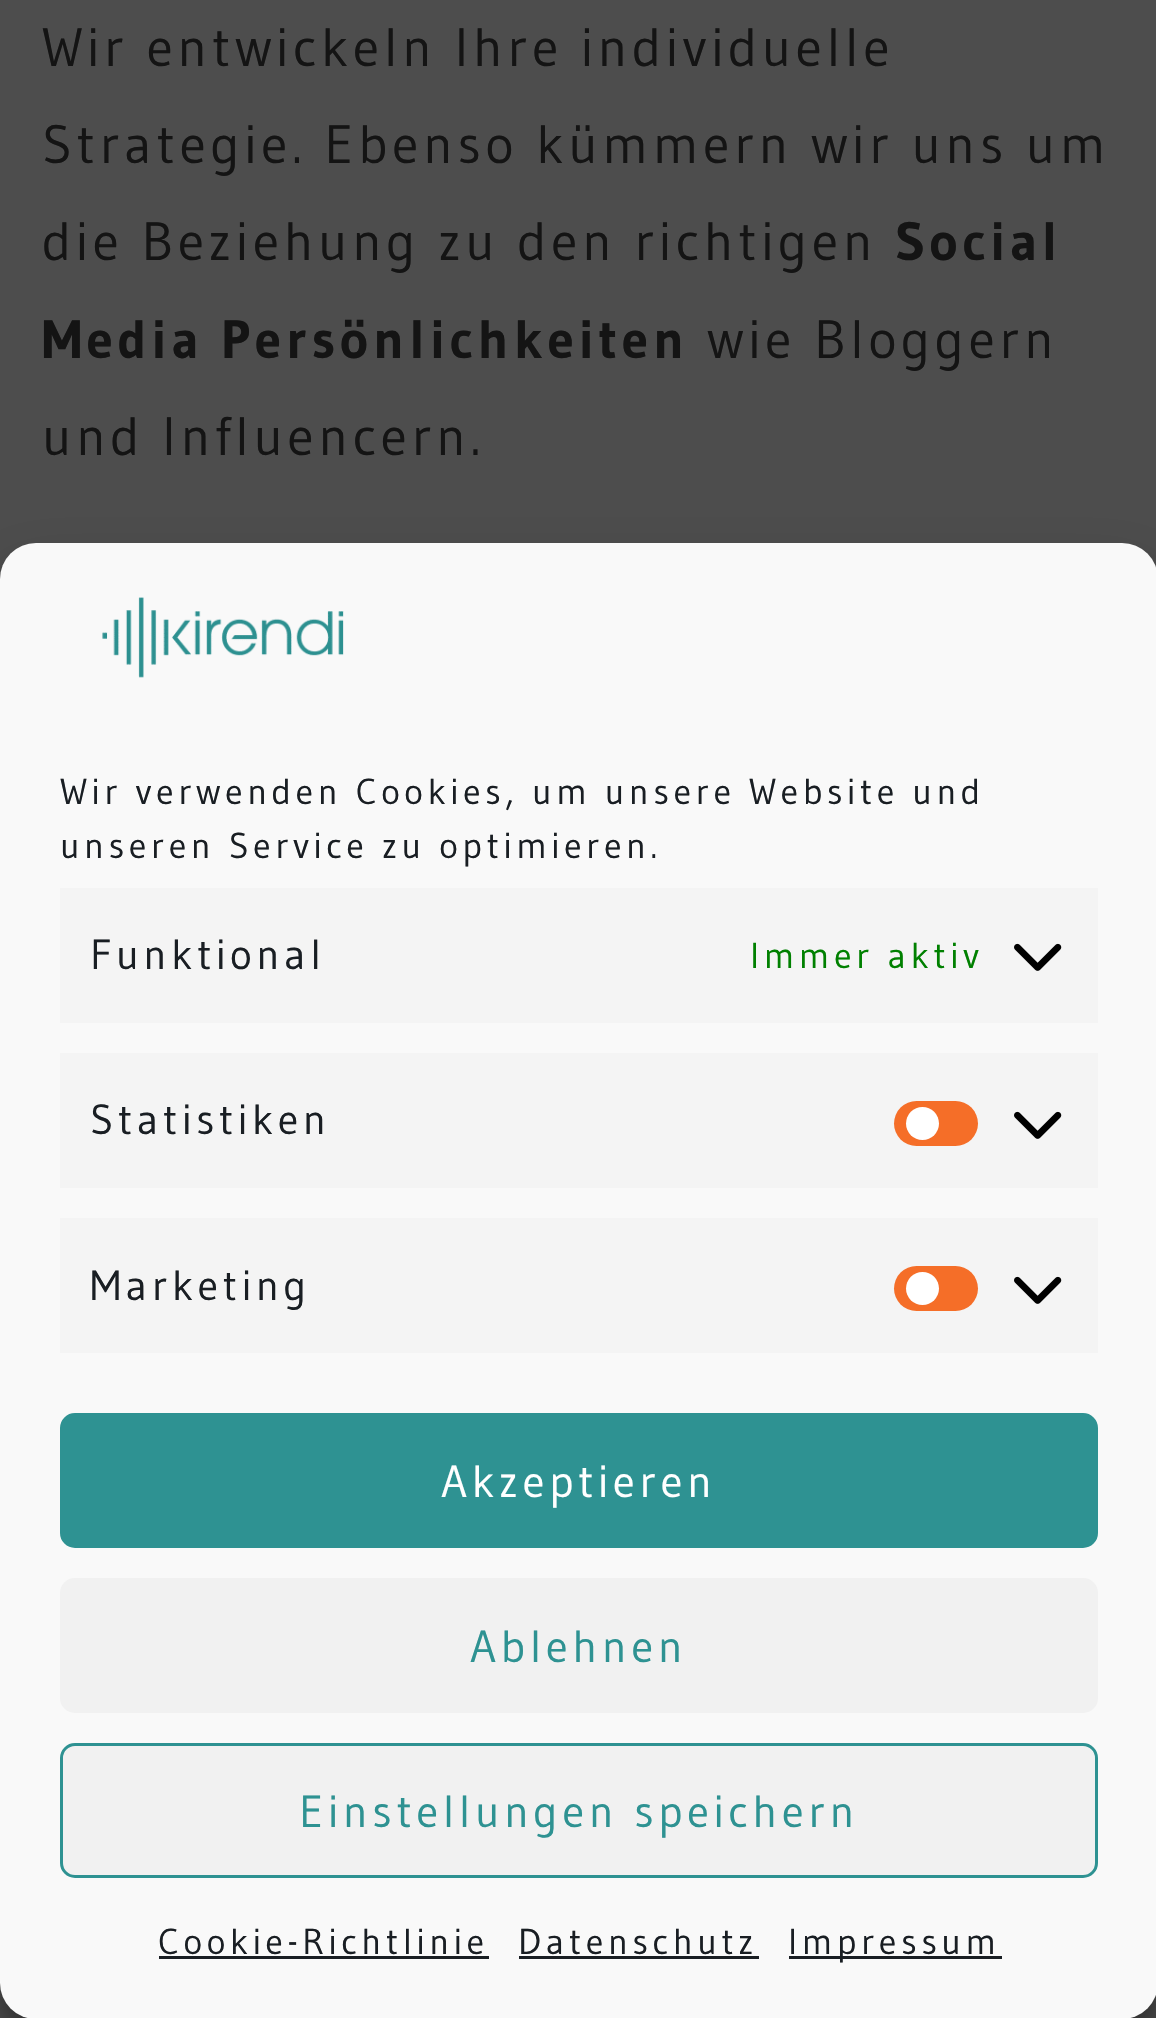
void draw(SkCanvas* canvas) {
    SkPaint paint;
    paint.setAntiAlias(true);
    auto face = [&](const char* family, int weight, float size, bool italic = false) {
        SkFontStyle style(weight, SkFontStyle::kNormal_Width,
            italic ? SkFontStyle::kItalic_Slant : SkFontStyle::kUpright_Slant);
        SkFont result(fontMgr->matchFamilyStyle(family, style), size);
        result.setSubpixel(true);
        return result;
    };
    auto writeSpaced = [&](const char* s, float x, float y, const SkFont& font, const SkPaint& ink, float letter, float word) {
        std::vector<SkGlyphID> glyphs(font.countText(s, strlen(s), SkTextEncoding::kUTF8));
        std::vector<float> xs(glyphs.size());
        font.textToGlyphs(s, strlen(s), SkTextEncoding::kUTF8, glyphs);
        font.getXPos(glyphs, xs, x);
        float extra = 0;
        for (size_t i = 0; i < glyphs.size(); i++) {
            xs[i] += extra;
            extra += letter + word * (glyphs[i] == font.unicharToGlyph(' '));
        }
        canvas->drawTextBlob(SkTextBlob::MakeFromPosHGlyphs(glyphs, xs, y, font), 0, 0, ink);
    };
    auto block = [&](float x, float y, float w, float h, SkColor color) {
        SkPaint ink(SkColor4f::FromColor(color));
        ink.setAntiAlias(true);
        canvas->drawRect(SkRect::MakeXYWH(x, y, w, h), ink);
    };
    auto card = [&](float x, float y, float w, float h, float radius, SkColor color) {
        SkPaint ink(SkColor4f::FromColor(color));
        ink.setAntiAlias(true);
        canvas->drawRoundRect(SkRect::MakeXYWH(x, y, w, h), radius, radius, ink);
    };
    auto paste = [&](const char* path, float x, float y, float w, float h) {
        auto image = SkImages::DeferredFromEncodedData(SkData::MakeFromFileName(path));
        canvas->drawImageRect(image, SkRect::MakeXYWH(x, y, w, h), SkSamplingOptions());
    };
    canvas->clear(SkColorSetRGB(77, 77, 77));
    auto kFont1 = face("Gudea", 400, 54);
    paint.setColor(SkColorSetRGB(20, 20, 20));
    writeSpaced("Wir entwickeln Ihre individuelle", 42, 66, kFont1, paint, 4.5f, 0);
    writeSpaced("Strategie. Ebenso kümmern wir uns um", 42, 163, kFont1, paint, 4.5f, 0);
    writeSpaced("die Beziehung zu den richtigen", 42, 260, kFont1, paint, 4.5f, 0);
    auto kFont2 = face("Gudea", 700, 54);
    writeSpaced("Social", 895, 260, kFont2, paint, 4.5f, 0);
    writeSpaced("Media Persönlichkeiten", 42, 358, kFont2, paint, 4.5f, 0);
    writeSpaced("wie Bloggern", 707, 358, kFont1, paint, 4.5f, 0);
    writeSpaced("und Influencern.", 42, 455, kFont1, paint, 4.5f, 0);
    paint.setColor(SkColorSetARGB(59, 0, 0, 0));
    paint.setMaskFilter(SkMaskFilter::MakeBlur(kNormal_SkBlurStyle, 9));
    canvas->drawRoundRect(SkRect::MakeXYWH(0, 561, 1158, 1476), 36, 36, paint);
    paint.setMaskFilter(nullptr);
    paint.setColor(SkColorSetARGB(48, 0, 0, 0));
    paint.setMaskFilter(SkMaskFilter::MakeBlur(kNormal_SkBlurStyle, 30));
    canvas->drawRoundRect(SkRect::MakeXYWH(0, 573, 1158, 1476), 36, 36, paint);
    paint.setMaskFilter(nullptr);
    card(0, 543, 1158, 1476, 36, SkColorSetRGB(249, 249, 249));
    paste("pic1.png", 102, 597, 242, 81);
    auto kFont3 = face("Gudea", 400, 36);
    paint.setColor(SkColorSetRGB(25, 30, 35));
    writeSpaced("Wir verwenden Cookies, um unsere Website und", 60, 804, kFont3, paint, 4.5f, 0);
    writeSpaced("unseren Service zu optimieren.", 60, 858, kFont3, paint, 4.5f, 0);
    block(60, 888, 1038, 135, SkColorSetRGB(244, 244, 244));
    auto kFont4 = face("Gudea", 400, 42);
    writeSpaced("Funktional", 90, 969, kFont4, paint, 4.5f, 0);
    paint.setColor(SkColorSetRGB(0, 128, 0));
    writeSpaced("Immer aktiv", 750, 968, kFont3, paint, 4.5f, 0);
    paste("pic2.png", 1014, 943, 48, 28);
    block(60, 1053, 1038, 135, SkColorSetRGB(244, 244, 244));
    paint.setColor(SkColorSetRGB(25, 30, 35));
    writeSpaced("Statistiken", 90, 1134, kFont4, paint, 4.5f, 0);
    card(894, 1101, 84, 45, 22.5f, SkColorSetRGB(245, 110, 40));
    paint.setColor(SK_ColorWHITE);
    canvas->drawCircle(922.5f, 1123.5f, 16.5f, paint);
    paste("pic2.png", 1014, 1111, 48, 28);
    block(60, 1218, 1038, 135, SkColorSetRGB(244, 244, 244));
    paint.setColor(SkColorSetRGB(25, 30, 35));
    writeSpaced("Marketing", 90, 1300, kFont4, paint, 4.5f, 0);
    card(894, 1266, 84, 45, 22.5f, SkColorSetRGB(245, 110, 40));
    paint.setColor(SK_ColorWHITE);
    canvas->drawCircle(922.5f, 1288.5f, 16.5f, paint);
    paste("pic2.png", 1014, 1276, 48, 28);
    paint.setColor(SkColorSetRGB(46, 146, 146));
    canvas->drawRoundRect(SkRect::MakeXYWH(61.5f, 1414.5f, 1035, 132), 13.5f, 13.5f, paint);
    paint.setStyle(SkPaint::kStroke_Style);
    paint.setStrokeWidth(3);
    canvas->drawRoundRect(SkRect::MakeXYWH(61.5f, 1414.5f, 1035, 132), 13.5f, 13.5f, paint);
    auto kFont5 = face("Gudea", 400, 45);
    paint.setStyle(SkPaint::kFill_Style);
    paint.setColor(SK_ColorWHITE);
    writeSpaced("Akzeptieren", 441, 1497, kFont5, paint, 4.5f, 0);
    card(60, 1578, 1038, 135, 15, SkColorSetRGB(241, 241, 241));
    paint.setColor(SkColorSetRGB(46, 146, 146));
    writeSpaced("Ablehnen", 470, 1662, kFont5, paint, 4.5f, 0);
    paint.setColor(SkColorSetRGB(241, 241, 241));
    canvas->drawRoundRect(SkRect::MakeXYWH(61.5f, 1744.5f, 1035, 132), 13.5f, 13.5f, paint);
    paint.setStyle(SkPaint::kStroke_Style);
    paint.setColor(SkColorSetRGB(46, 146, 146));
    canvas->drawRoundRect(SkRect::MakeXYWH(61.5f, 1744.5f, 1035, 132), 13.5f, 13.5f, paint);
    paint.setStyle(SkPaint::kFill_Style);
    writeSpaced("Einstellungen speichern", 299, 1827, kFont5, paint, 4.5f, 0);
    paint.setColor(SkColorSetRGB(25, 30, 35));
    writeSpaced("Cookie-Richtlinie", 158, 1954, kFont3, paint, 4.5f, 0);
    block(159, 1956, 330, 3, SkColorSetRGB(25, 30, 35));
    writeSpaced("Datenschutz", 518, 1954, kFont3, paint, 4.5f, 0);
    block(519, 1956, 240, 3, SkColorSetRGB(25, 30, 35));
    block(789, 1956, 213, 3, SkColorSetRGB(25, 30, 35));
    writeSpaced("Impressum", 788, 1954, kFont3, paint, 4.5f, 0);
}
